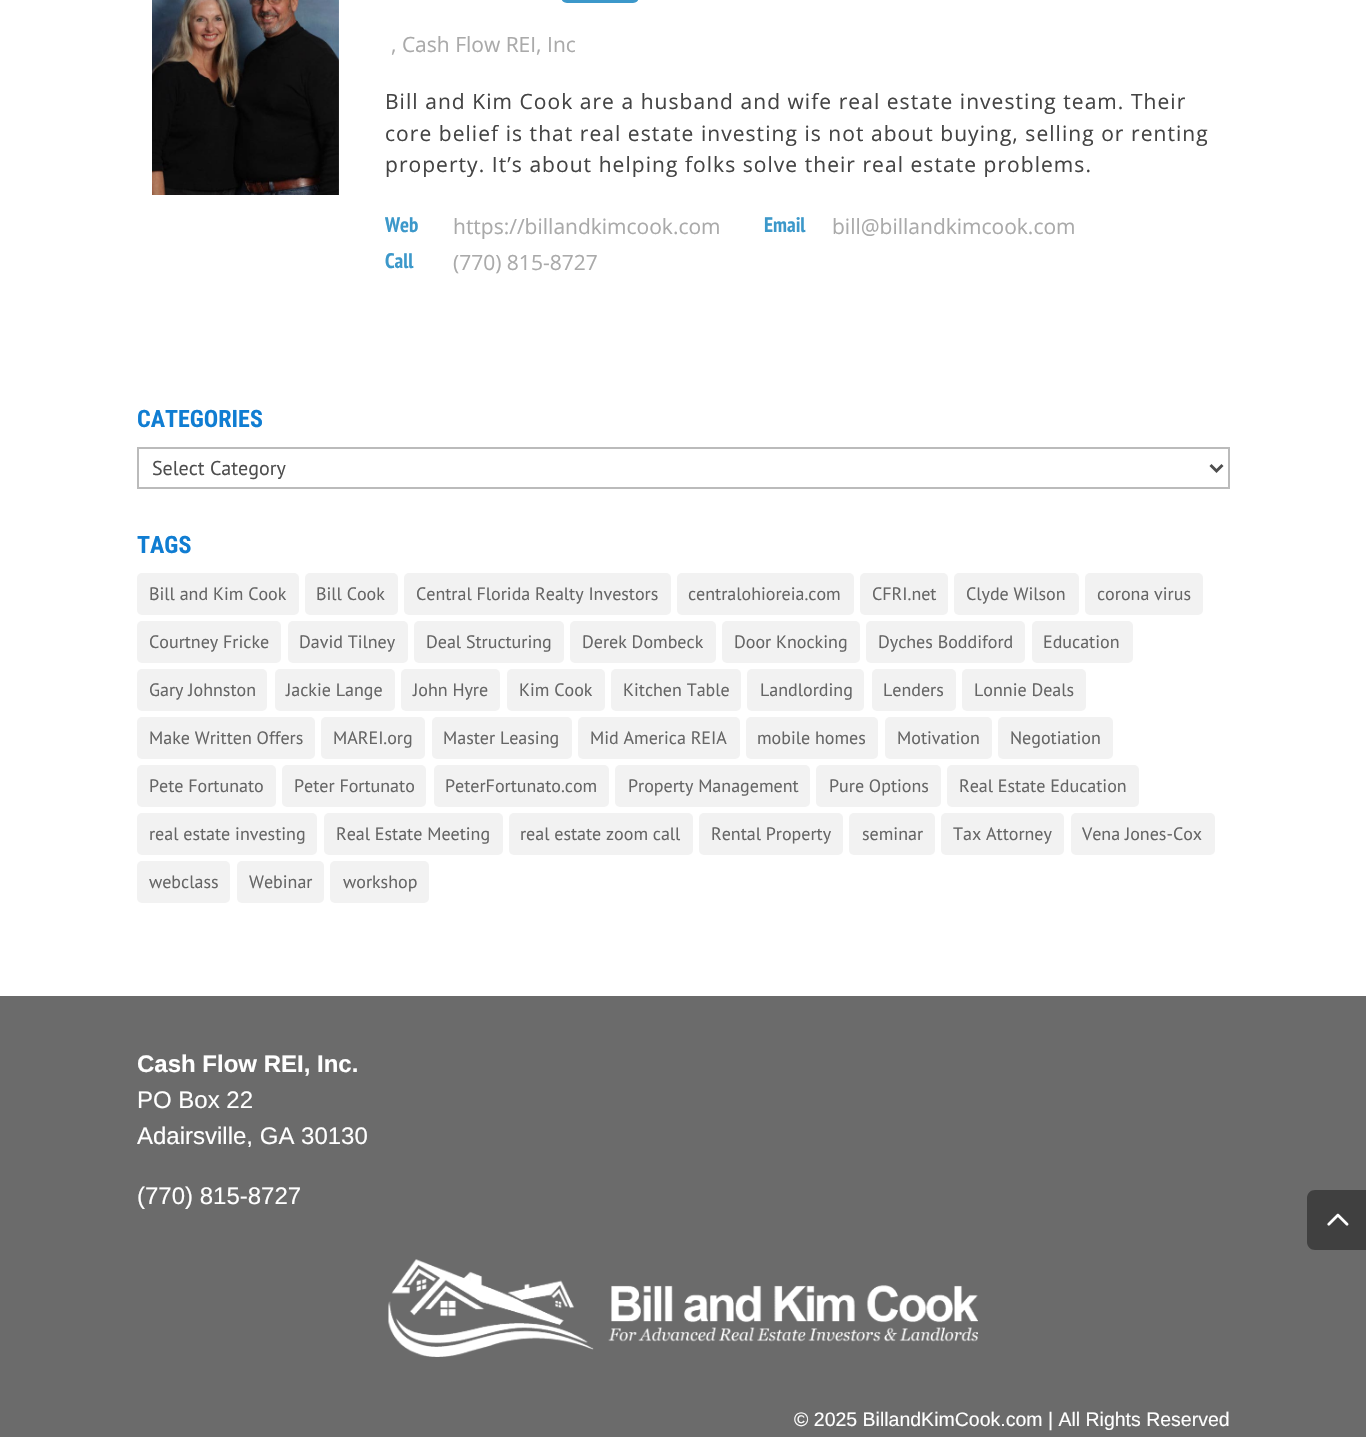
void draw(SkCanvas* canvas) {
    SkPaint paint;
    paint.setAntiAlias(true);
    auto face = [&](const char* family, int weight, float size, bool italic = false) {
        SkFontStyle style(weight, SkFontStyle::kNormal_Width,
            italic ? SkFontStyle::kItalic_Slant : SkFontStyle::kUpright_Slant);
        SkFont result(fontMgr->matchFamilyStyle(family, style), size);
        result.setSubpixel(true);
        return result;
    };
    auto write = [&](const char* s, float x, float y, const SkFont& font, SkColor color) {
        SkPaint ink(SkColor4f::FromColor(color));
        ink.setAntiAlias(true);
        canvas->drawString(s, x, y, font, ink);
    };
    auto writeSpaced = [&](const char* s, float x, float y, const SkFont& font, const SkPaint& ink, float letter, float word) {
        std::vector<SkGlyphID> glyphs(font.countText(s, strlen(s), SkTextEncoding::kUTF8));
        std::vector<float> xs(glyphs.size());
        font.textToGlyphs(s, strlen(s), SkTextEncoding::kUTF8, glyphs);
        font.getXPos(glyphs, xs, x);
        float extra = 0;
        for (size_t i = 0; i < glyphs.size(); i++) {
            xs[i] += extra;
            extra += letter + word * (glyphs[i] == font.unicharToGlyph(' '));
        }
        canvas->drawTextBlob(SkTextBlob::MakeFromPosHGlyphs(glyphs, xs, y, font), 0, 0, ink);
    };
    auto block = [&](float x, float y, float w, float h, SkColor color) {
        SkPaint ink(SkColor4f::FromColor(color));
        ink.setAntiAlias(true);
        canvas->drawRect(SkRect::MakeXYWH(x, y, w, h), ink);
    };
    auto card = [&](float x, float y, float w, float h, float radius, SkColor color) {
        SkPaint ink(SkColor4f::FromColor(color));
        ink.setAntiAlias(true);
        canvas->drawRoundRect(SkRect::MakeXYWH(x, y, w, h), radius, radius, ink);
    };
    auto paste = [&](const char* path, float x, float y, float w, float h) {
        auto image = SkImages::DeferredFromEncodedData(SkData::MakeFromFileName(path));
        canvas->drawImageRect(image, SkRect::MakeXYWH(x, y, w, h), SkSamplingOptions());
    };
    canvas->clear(SK_ColorWHITE);
    paste("pic1.png", 152, 0, 187, 195);
    card(561, -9, 78, 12, 9, SkColorSetRGB(60, 152, 202));
    auto kFont1 = face("Open Sans", 400, 21);
    write(", Cash Flow REI, Inc", 391, 52, kFont1, SkColorSetRGB(170, 170, 170));
    paint.setColor(SkColorSetRGB(68, 68, 68));
    writeSpaced("Bill and Kim Cook are a husband and wife real estate investing team. Their", 385, 109, kFont1, paint, 1.05f, 0);
    writeSpaced("core belief is that real estate investing is not about buying, selling or renting", 385, 141, kFont1, paint, 1.05f, 0);
    writeSpaced("property. It’s about helping folks solve their real estate problems.", 385, 172, kFont1, paint, 1.05f, 0);
    auto kFont2 = face("PT Sans Narrow", 700, 21);
    write("Web", 385, 232, kFont2, SkColorSetRGB(60, 152, 202));
    write("https://billandkimcook.com", 453, 234, kFont1, SkColorSetRGB(170, 170, 170));
    write("Email", 764, 232, kFont2, SkColorSetRGB(60, 152, 202));
    write("bill@billandkimcook.com", 832, 234, kFont1, SkColorSetRGB(170, 170, 170));
    write("Call", 385, 268, kFont2, SkColorSetRGB(60, 152, 202));
    write("(770) 815-8727", 453, 270, kFont1, SkColorSetRGB(170, 170, 170));
    auto kFont3 = face("Roboto Condensed", 700, 24);
    write("CATEGORIES", 137, 427, kFont3, SkColorSetRGB(16, 125, 210));
    paint.setStyle(SkPaint::kStroke_Style);
    paint.setStrokeWidth(2);
    paint.setColor(SkColorSetRGB(187, 187, 187));
    canvas->drawRect(SkRect::MakeXYWH(138, 448, 1091, 40), paint);
    paint.setStrokeWidth(3);
    paint.setColor(SkColorSetRGB(78, 78, 78));
    canvas->drawPath(SkPathBuilder().moveTo(1210.5f, 465).lineTo(1216.5f, 471).lineTo(1222.5f, 465).detach(), paint);
    auto kFont4 = face("PT Sans", 400, 20);
    write("Select Category", 152, 475, kFont4, SkColorSetRGB(78, 78, 78));
    write("TAGS", 137, 553, kFont3, SkColorSetRGB(16, 125, 210));
    card(137, 573, 162, 42, 5, SkColorSetRGB(242, 242, 242));
    auto kFont5 = face("PT Sans", 400, 18);
    write("Bill and Kim Cook", 149, 600, kFont5, SkColorSetRGB(102, 102, 102));
    card(305, 573, 93, 42, 5, SkColorSetRGB(242, 242, 242));
    write("Bill Cook", 316, 600, kFont5, SkColorSetRGB(102, 102, 102));
    card(404, 573, 267, 42, 5, SkColorSetRGB(242, 242, 242));
    write("Central Florida Realty Investors", 416, 600, kFont5, SkColorSetRGB(102, 102, 102));
    card(677, 573, 177, 42, 5, SkColorSetRGB(242, 242, 242));
    write("centralohioreia.com", 688, 600, kFont5, SkColorSetRGB(102, 102, 102));
    card(860, 573, 88, 42, 5, SkColorSetRGB(242, 242, 242));
    write("CFRI.net", 872, 600, kFont5, SkColorSetRGB(102, 102, 102));
    card(954, 573, 125, 42, 5, SkColorSetRGB(242, 242, 242));
    write("Clyde Wilson", 966, 600, kFont5, SkColorSetRGB(102, 102, 102));
    card(1085, 573, 118, 42, 5, SkColorSetRGB(242, 242, 242));
    write("corona virus", 1097, 600, kFont5, SkColorSetRGB(102, 102, 102));
    card(137, 621, 144, 42, 5, SkColorSetRGB(242, 242, 242));
    write("Courtney Fricke", 149, 648, kFont5, SkColorSetRGB(102, 102, 102));
    card(288, 621, 120, 42, 5, SkColorSetRGB(242, 242, 242));
    write("David Tilney", 299, 648, kFont5, SkColorSetRGB(102, 102, 102));
    card(414, 621, 150, 42, 5, SkColorSetRGB(242, 242, 242));
    write("Deal Structuring", 426, 648, kFont5, SkColorSetRGB(102, 102, 102));
    card(570, 621, 146, 42, 5, SkColorSetRGB(242, 242, 242));
    write("Derek Dombeck", 582, 648, kFont5, SkColorSetRGB(102, 102, 102));
    card(722, 621, 138, 42, 5, SkColorSetRGB(242, 242, 242));
    write("Door Knocking", 734, 648, kFont5, SkColorSetRGB(102, 102, 102));
    card(866, 621, 159, 42, 5, SkColorSetRGB(242, 242, 242));
    write("Dyches Boddiford", 878, 648, kFont5, SkColorSetRGB(102, 102, 102));
    card(1032, 621, 101, 42, 5, SkColorSetRGB(242, 242, 242));
    write("Education", 1043, 648, kFont5, SkColorSetRGB(102, 102, 102));
    card(137, 669, 130, 42, 5, SkColorSetRGB(242, 242, 242));
    write("Gary Johnston", 149, 696, kFont5, SkColorSetRGB(102, 102, 102));
    card(275, 669, 120, 42, 5, SkColorSetRGB(242, 242, 242));
    write("Jackie Lange", 286, 696, kFont5, SkColorSetRGB(102, 102, 102));
    card(401, 669, 99, 42, 5, SkColorSetRGB(242, 242, 242));
    write("John Hyre", 413, 696, kFont5, SkColorSetRGB(102, 102, 102));
    card(507, 669, 98, 42, 5, SkColorSetRGB(242, 242, 242));
    write("Kim Cook", 519, 696, kFont5, SkColorSetRGB(102, 102, 102));
    card(611, 669, 130, 42, 5, SkColorSetRGB(242, 242, 242));
    write("Kitchen Table", 623, 696, kFont5, SkColorSetRGB(102, 102, 102));
    card(747, 669, 117, 42, 5, SkColorSetRGB(242, 242, 242));
    write("Landlording", 760, 696, kFont5, SkColorSetRGB(102, 102, 102));
    card(872, 669, 84, 42, 5, SkColorSetRGB(242, 242, 242));
    write("Lenders", 883, 696, kFont5, SkColorSetRGB(102, 102, 102));
    card(962, 669, 124, 42, 5, SkColorSetRGB(242, 242, 242));
    write("Lonnie Deals", 974, 696, kFont5, SkColorSetRGB(102, 102, 102));
    card(137, 717, 178, 42, 5, SkColorSetRGB(242, 242, 242));
    write("Make Written Offers", 149, 744, kFont5, SkColorSetRGB(102, 102, 102));
    card(321, 717, 104, 42, 5, SkColorSetRGB(242, 242, 242));
    write("MAREI.org", 333, 744, kFont5, SkColorSetRGB(102, 102, 102));
    card(432, 717, 140, 42, 5, SkColorSetRGB(242, 242, 242));
    write("Master Leasing", 443, 744, kFont5, SkColorSetRGB(102, 102, 102));
    card(578, 717, 162, 42, 5, SkColorSetRGB(242, 242, 242));
    write("Mid America REIA", 590, 744, kFont5, SkColorSetRGB(102, 102, 102));
    card(746, 717, 132, 42, 5, SkColorSetRGB(242, 242, 242));
    write("mobile homes", 757, 744, kFont5, SkColorSetRGB(102, 102, 102));
    card(885, 717, 107, 42, 5, SkColorSetRGB(242, 242, 242));
    write("Motivation", 897, 744, kFont5, SkColorSetRGB(102, 102, 102));
    card(998, 717, 115, 42, 5, SkColorSetRGB(242, 242, 242));
    write("Negotiation", 1010, 744, kFont5, SkColorSetRGB(102, 102, 102));
    card(137, 765, 139, 42, 5, SkColorSetRGB(242, 242, 242));
    write("Pete Fortunato", 149, 792, kFont5, SkColorSetRGB(102, 102, 102));
    card(282, 765, 144, 42, 5, SkColorSetRGB(242, 242, 242));
    write("Peter Fortunato", 294, 792, kFont5, SkColorSetRGB(102, 102, 102));
    card(434, 765, 175, 42, 5, SkColorSetRGB(242, 242, 242));
    write("PeterFortunato.com", 445, 792, kFont5, SkColorSetRGB(102, 102, 102));
    card(615, 765, 195, 42, 5, SkColorSetRGB(242, 242, 242));
    write("Property Management", 628, 792, kFont5, SkColorSetRGB(102, 102, 102));
    card(816, 765, 125, 42, 5, SkColorSetRGB(242, 242, 242));
    write("Pure Options", 829, 792, kFont5, SkColorSetRGB(102, 102, 102));
    card(947, 765, 192, 42, 5, SkColorSetRGB(242, 242, 242));
    write("Real Estate Education", 959, 792, kFont5, SkColorSetRGB(102, 102, 102));
    card(137, 813, 180, 42, 5, SkColorSetRGB(242, 242, 242));
    write("real estate investing", 149, 840, kFont5, SkColorSetRGB(102, 102, 102));
    card(324, 813, 179, 42, 5, SkColorSetRGB(242, 242, 242));
    write("Real Estate Meeting", 336, 840, kFont5, SkColorSetRGB(102, 102, 102));
    card(509, 813, 184, 42, 5, SkColorSetRGB(242, 242, 242));
    write("real estate zoom call", 520, 840, kFont5, SkColorSetRGB(102, 102, 102));
    card(699, 813, 144, 42, 5, SkColorSetRGB(242, 242, 242));
    write("Rental Property", 711, 840, kFont5, SkColorSetRGB(102, 102, 102));
    card(849, 813, 86, 42, 5, SkColorSetRGB(242, 242, 242));
    write("seminar", 862, 840, kFont5, SkColorSetRGB(102, 102, 102));
    card(941, 813, 123, 42, 5, SkColorSetRGB(242, 242, 242));
    write("Tax Attorney", 953, 840, kFont5, SkColorSetRGB(102, 102, 102));
    card(1071, 813, 144, 42, 5, SkColorSetRGB(242, 242, 242));
    write("Vena Jones-Cox", 1082, 840, kFont5, SkColorSetRGB(102, 102, 102));
    card(137, 861, 93, 42, 5, SkColorSetRGB(242, 242, 242));
    write("webclass", 149, 888, kFont5, SkColorSetRGB(102, 102, 102));
    card(237, 861, 87, 42, 5, SkColorSetRGB(242, 242, 242));
    write("Webinar", 249, 888, kFont5, SkColorSetRGB(102, 102, 102));
    card(330, 861, 99, 42, 5, SkColorSetRGB(242, 242, 242));
    write("workshop", 343, 888, kFont5, SkColorSetRGB(102, 102, 102));
    block(0, 996, 1366, 441, SkColorSetRGB(107, 107, 107));
    auto kFont6 = face("Liberation Sans", 700, 24);
    write("Cash Flow REI, Inc.", 137, 1072, kFont6, SK_ColorWHITE);
    auto kFont7 = face("Liberation Sans", 400, 24);
    write("PO Box 22", 137, 1108, kFont7, SK_ColorWHITE);
    write("Adairsville, GA 30130", 137, 1144, kFont7, SK_ColorWHITE);
    write("(770) 815-8727", 137, 1204, kFont7, SK_ColorWHITE);
    paste("pic2.png", 388, 1259, 590, 98);
    auto kFont8 = face("Liberation Sans", 400, 19.5f);
    write("© 2025 BillandKimCook.com | All Rights Reserved", 794, 1426, kFont8, SK_ColorWHITE);
    paint.setStyle(SkPaint::kFill_Style);
    paint.setColor(SkColorSetRGB(64, 64, 64));
    canvas->drawPath(SkPathBuilder().moveTo(1315, 1190).lineTo(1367, 1190).lineTo(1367, 1250).lineTo(1315, 1250).cubicTo(1310.5f, 1250, 1307, 1246.5f, 1307, 1242).lineTo(1307, 1198).cubicTo(1307, 1193.5f, 1310.5f, 1190, 1315, 1190).close().detach(), paint);
    paste("pic3.png", 1327, 1213, 22, 13);
}
